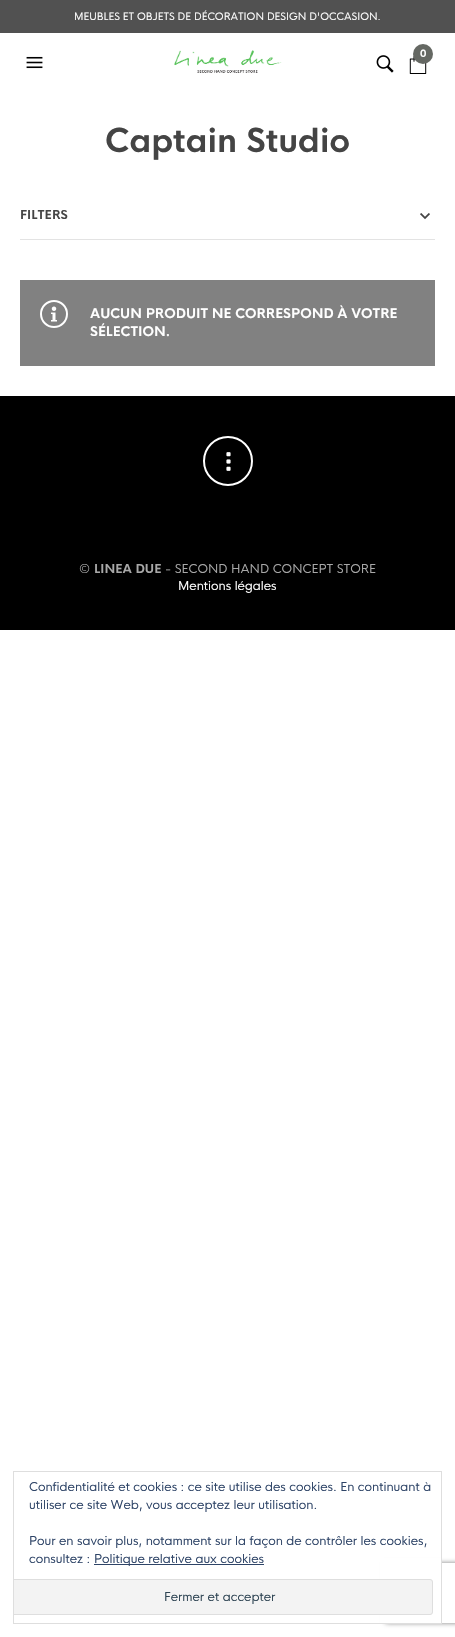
void draw(SkCanvas* canvas) {
    SkPaint paint;
    paint.setAntiAlias(true);
    auto face = [&](const char* family, int weight, float size, bool italic = false) {
        SkFontStyle style(weight, SkFontStyle::kNormal_Width,
            italic ? SkFontStyle::kItalic_Slant : SkFontStyle::kUpright_Slant);
        SkFont result(fontMgr->matchFamilyStyle(family, style), size);
        result.setSubpixel(true);
        return result;
    };
    auto write = [&](const char* s, float x, float y, const SkFont& font, SkColor color) {
        SkPaint ink(SkColor4f::FromColor(color));
        ink.setAntiAlias(true);
        canvas->drawString(s, x, y, font, ink);
    };
    auto block = [&](float x, float y, float w, float h, SkColor color) {
        SkPaint ink(SkColor4f::FromColor(color));
        ink.setAntiAlias(true);
        canvas->drawRect(SkRect::MakeXYWH(x, y, w, h), ink);
    };
    auto paste = [&](const char* path, float x, float y, float w, float h) {
        auto image = SkImages::DeferredFromEncodedData(SkData::MakeFromFileName(path));
        canvas->drawImageRect(image, SkRect::MakeXYWH(x, y, w, h), SkSamplingOptions());
    };
    canvas->clear(SK_ColorWHITE);
    block(0, 0, 455, 33, SkColorSetRGB(81, 81, 81));
    auto kFont1 = face("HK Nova", 400, 10);
    write("MEUBLES ET OBJETS DE DÉCORATION DESIGN D'OCCASION.", 74, 20, kFont1, SK_ColorWHITE);
    paste("pic1.png", 26, 56, 17, 13);
    paste("pic2.png", 174, 50, 108, 23);
    paste("pic3.png", 409, 55, 18, 19);
    paint.setColor(SkColorSetRGB(101, 104, 99));
    canvas->drawCircle(423, 54, 10, paint);
    auto kFont2 = face("HK Nova", 700, 10);
    write("0", 420, 57, kFont2, SK_ColorWHITE);
    paste("pic4.png", 376, 55, 18, 18);
    auto kFont3 = face("HK Nova", 700, 32.25f);
    write("Captain Studio", 105, 152, kFont3, SkColorSetRGB(68, 68, 68));
    auto kFont4 = face("HK Nova", 700, 12);
    write("FILTERS", 20, 219, kFont4, SkColorSetRGB(68, 68, 68));
    paste("pic5.png", 420, 213, 10, 7);
    block(20, 239, 415, 1, SkColorSetRGB(227, 227, 227));
    block(20, 280, 415, 86, SkColorSetRGB(129, 129, 129));
    paste("pic6.png", 51, 306, 6, 16);
    paint.setStyle(SkPaint::kStroke_Style);
    paint.setStrokeWidth(2);
    paint.setColor(SK_ColorWHITE);
    canvas->drawCircle(54, 314, 13, paint);
    auto kFont5 = face("HK Nova", 700, 13);
    write("AUCUN PRODUIT NE CORRESPOND À VOTRE", 90, 318, kFont5, SK_ColorWHITE);
    write("SÉLECTION.", 90, 336, kFont5, SK_ColorWHITE);
    block(0, 396, 455, 234, SK_ColorBLACK);
    canvas->drawCircle(228, 461, 24, paint);
    paste("pic7.png", 226, 452, 5, 19);
    auto kFont6 = face("HK Nova", 400, 12);
    write("©", 79, 573, kFont6, SkColorSetRGB(168, 168, 168));
    write("LINEA DUE", 94, 573, kFont4, SkColorSetRGB(168, 168, 168));
    write("- SECOND HAND CONCEPT STORE", 165, 573, kFont6, SkColorSetRGB(168, 168, 168));
    write("Mentions légales", 178, 590, kFont6, SK_ColorWHITE);
    canvas->save();
    canvas->clipPath(SkPathBuilder(SkPathFillType::kEvenOdd).moveTo(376, 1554).lineTo(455, 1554).lineTo(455, 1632).lineTo(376, 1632).close().moveTo(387, 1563).lineTo(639, 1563).cubicTo(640, 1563, 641, 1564, 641, 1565).lineTo(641, 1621).cubicTo(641, 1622, 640, 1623, 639, 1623).lineTo(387, 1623).cubicTo(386, 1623, 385, 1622, 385, 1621).lineTo(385, 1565).cubicTo(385, 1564, 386, 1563, 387, 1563).close().detach(), true);
    paint.setStyle(SkPaint::kFill_Style);
    paint.setColor(SkColorSetRGB(128, 128, 128));
    paint.setMaskFilter(SkMaskFilter::MakeBlur(kNormal_SkBlurStyle, 2.5f));
    canvas->drawRoundRect(SkRect::MakeXYWH(385, 1563, 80, 60), 2, 2, paint);
    paint.setMaskFilter(nullptr);
    canvas->restore();
    block(380, 1558, 61, 65, SK_ColorWHITE);
    paint.setStyle(SkPaint::kStroke_Style);
    paint.setStrokeWidth(1);
    paint.setColor(SkColorSetRGB(222, 222, 222));
    canvas->drawRect(SkRect::MakeXYWH(13.5f, 1471.5f, 428, 152), paint);
    write("Confidentialité et cookies : ce site utilise des cookies. En continuant à", 29, 1491, kFont6, SkColorSetRGB(46, 68, 103));
    write("utiliser ce site Web, vous acceptez leur utilisation.", 29, 1509, kFont6, SkColorSetRGB(46, 68, 103));
    write("Pour en savoir plus, notamment sur la façon de contrôler les cookies,", 29, 1545, kFont6, SkColorSetRGB(46, 68, 103));
    write("consultez :", 29, 1563, kFont6, SkColorSetRGB(46, 68, 103));
    block(94, 1564, 170, 1, SkColorSetRGB(46, 68, 103));
    write("Politique relative aux cookies", 94, 1563, kFont6, SkColorSetRGB(46, 68, 103));
    paint.setStyle(SkPaint::kFill_Style);
    paint.setColor(SkColorSetRGB(243, 243, 243));
    canvas->drawPath(SkPathBuilder().moveTo(14, 1579).lineTo(430, 1579).cubicTo(431.5f, 1579, 433, 1580.5f, 433, 1582).lineTo(433, 1612).cubicTo(433, 1613.5f, 431.5f, 1615, 430, 1615).lineTo(14, 1615).close().detach(), paint);
    canvas->save();
    canvas->clipRect(SkRect::MakeXYWH(14, 1472, 427, 151));
    paint.setStyle(SkPaint::kStroke_Style);
    paint.setColor(SkColorSetRGB(222, 222, 222));
    canvas->drawRoundRect(SkRect::MakeXYWH(6.5f, 1579.5f, 426, 35), 2.5f, 2.5f, paint);
    canvas->restore();
    write("Fermer et accepter", 164, 1601, kFont6, SkColorSetRGB(46, 68, 83));
}
